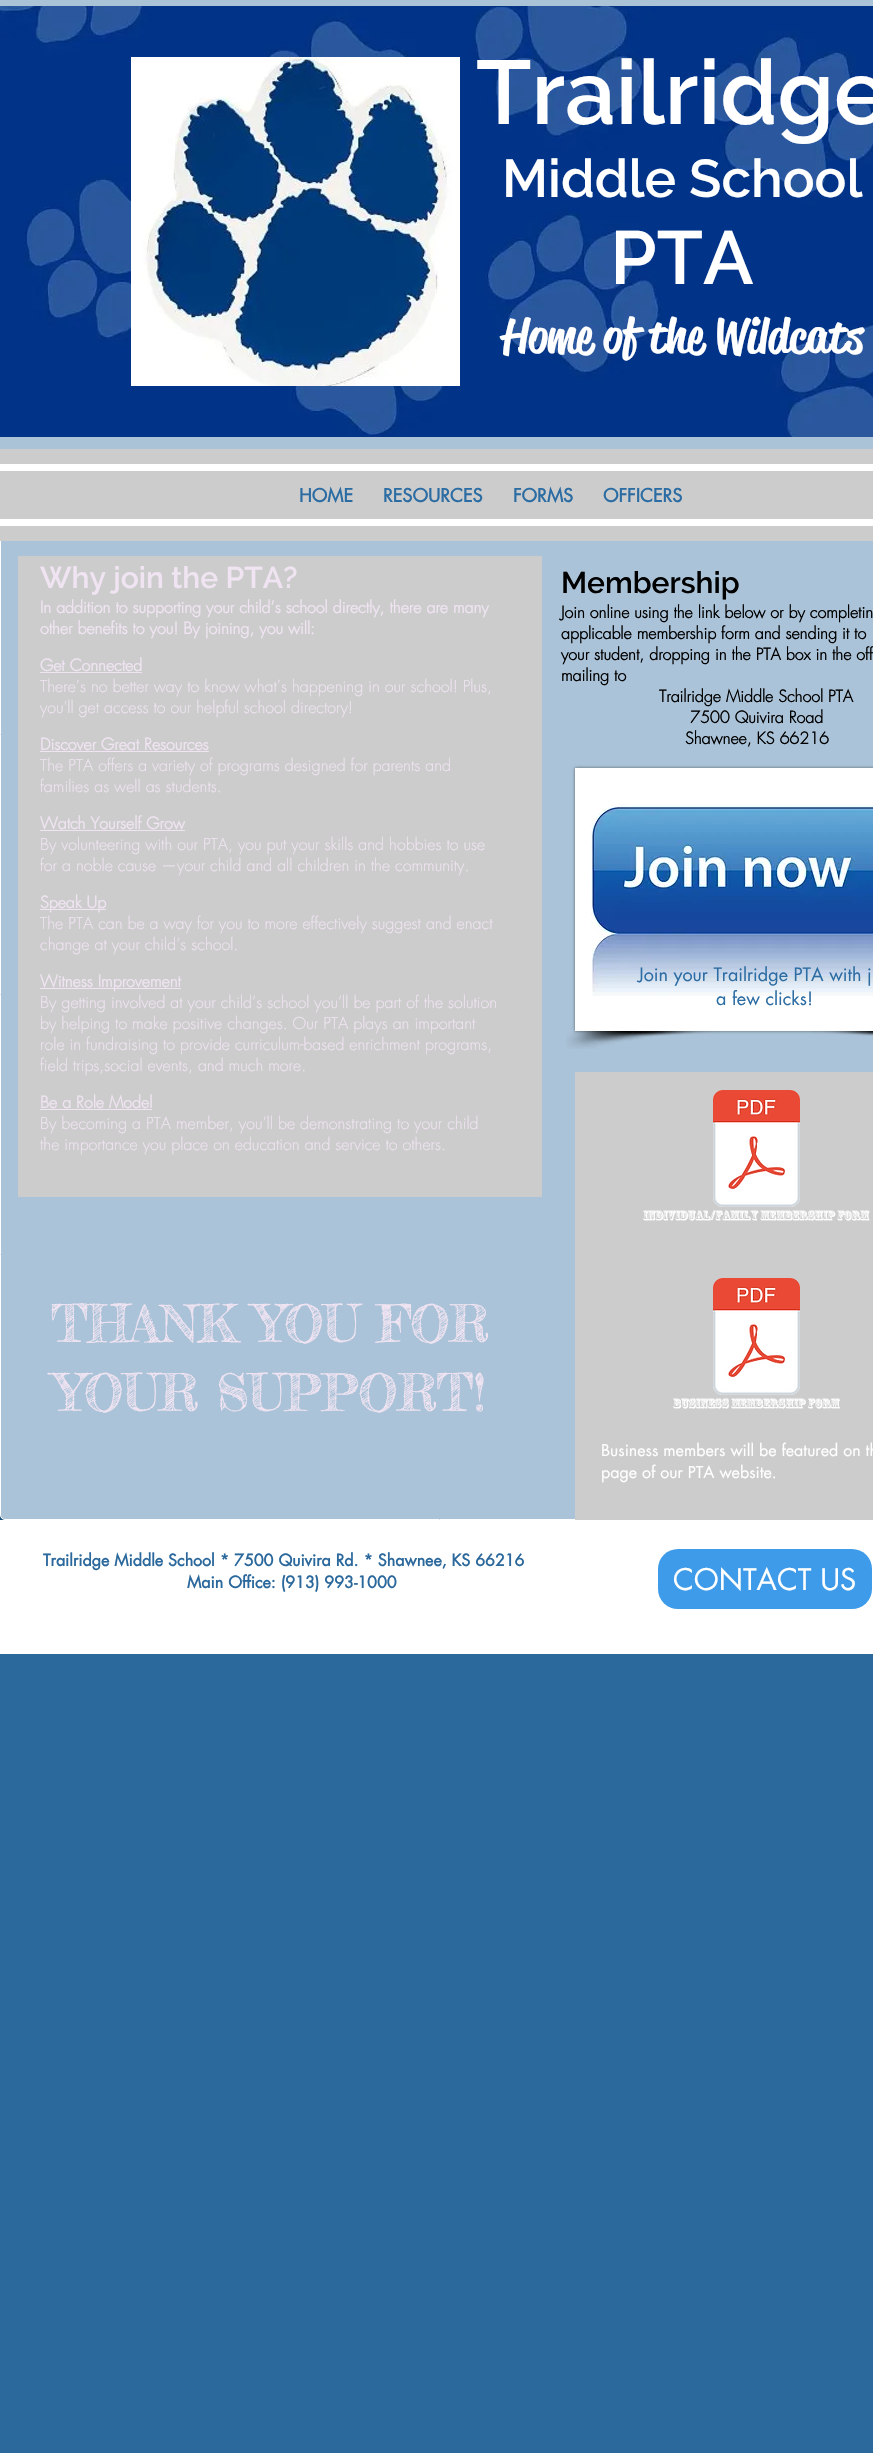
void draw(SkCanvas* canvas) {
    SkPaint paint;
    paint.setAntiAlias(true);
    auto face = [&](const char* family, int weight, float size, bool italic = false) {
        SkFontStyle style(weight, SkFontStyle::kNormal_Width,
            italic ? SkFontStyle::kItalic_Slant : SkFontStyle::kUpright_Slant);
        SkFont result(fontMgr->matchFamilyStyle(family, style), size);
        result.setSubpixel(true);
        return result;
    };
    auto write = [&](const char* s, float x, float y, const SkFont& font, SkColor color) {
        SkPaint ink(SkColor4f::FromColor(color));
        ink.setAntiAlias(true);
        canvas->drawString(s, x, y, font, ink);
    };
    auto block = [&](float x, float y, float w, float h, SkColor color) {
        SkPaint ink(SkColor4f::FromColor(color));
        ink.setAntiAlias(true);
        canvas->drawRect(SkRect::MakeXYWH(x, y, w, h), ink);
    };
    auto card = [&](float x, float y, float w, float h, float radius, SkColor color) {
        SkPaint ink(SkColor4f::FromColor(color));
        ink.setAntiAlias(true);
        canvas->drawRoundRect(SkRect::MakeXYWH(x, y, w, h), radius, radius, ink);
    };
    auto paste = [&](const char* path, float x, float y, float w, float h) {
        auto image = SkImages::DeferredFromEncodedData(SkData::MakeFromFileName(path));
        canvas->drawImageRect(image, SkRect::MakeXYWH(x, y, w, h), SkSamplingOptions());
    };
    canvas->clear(SkColorSetRGB(43, 104, 156));
    block(0, 0, 873, 449, SkColorSetRGB(170, 195, 215));
    paste("pic1.png", 0, 6, 873, 431);
    paste("pic2.png", 131, 57, 329, 329);
    auto kFont1 = face("Raleway", 600, 90);
    write("Trailridge", 476, 124, kFont1, SK_ColorWHITE);
    auto kFont2 = face("Raleway", 600, 53);
    write("Middle School", 502, 197, kFont2, SK_ColorWHITE);
    auto kFont3 = face("Raleway", 600, 75);
    write("PTA", 610, 284, kFont3, SK_ColorWHITE);
    auto kFont4 = face("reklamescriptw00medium", 500, 47);
    write("Home of the Wildcats", 502, 352, kFont4, SK_ColorWHITE);
    canvas->save();
    canvas->clipPath(SkPathBuilder(SkPathFillType::kEvenOdd).moveTo(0, 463).lineTo(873, 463).lineTo(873, 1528).lineTo(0, 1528).close().moveTo(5, 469).lineTo(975, 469).cubicTo(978, 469, 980, 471, 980, 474).lineTo(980, 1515).cubicTo(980, 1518, 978, 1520, 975, 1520).lineTo(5, 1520).cubicTo(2, 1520, 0, 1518, 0, 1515).lineTo(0, 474).cubicTo(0, 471, 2, 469, 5, 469).close().detach(), true);
    paint.setColor(SkColorSetARGB(153, 0, 0, 0));
    paint.setMaskFilter(SkMaskFilter::MakeBlur(kNormal_SkBlurStyle, 2));
    canvas->drawRoundRect(SkRect::MakeXYWH(0, 470, 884, 1051), 5, 5, paint);
    paint.setMaskFilter(nullptr);
    canvas->restore();
    paint.setColor(SkColorSetARGB(153, 255, 255, 255));
    canvas->drawRoundRect(SkRect::MakeXYWH(0.5f, 469.5f, 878, 1050), 4.5f, 4.5f, paint);
    paint.setStyle(SkPaint::kStroke_Style);
    paint.setStrokeWidth(1);
    paint.setColor(SK_ColorWHITE);
    canvas->drawRoundRect(SkRect::MakeXYWH(0.5f, 469.5f, 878, 1050), 4.5f, 4.5f, paint);
    block(0, 449, 873, 92, SkColorSetRGB(204, 204, 204));
    block(0, 464, 873, 7, SK_ColorWHITE);
    block(0, 519, 873, 7, SK_ColorWHITE);
    auto kFont5 = face("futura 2", 700, 18);
    write("HOME", 299, 502, kFont5, SkColorSetRGB(43, 108, 163));
    write("RESOURCES", 383, 502, kFont5, SkColorSetRGB(43, 108, 163));
    write("FORMS", 513, 502, kFont5, SkColorSetRGB(43, 108, 163));
    write("OFFICERS", 603, 502, kFont5, SkColorSetRGB(43, 108, 163));
    block(18, 556, 524, 641, SkColorSetRGB(204, 204, 204));
    auto kFont6 = face("Raleway", 600, 30);
    write("Why join the PTA?", 40, 588, kFont6, SkColorSetRGB(240, 228, 242));
    auto kFont7 = face("futura", 700, 16);
    write("In addition to supporting your child’s school directly, there are many", 40, 613, kFont7, SkColorSetRGB(240, 228, 242));
    write("other benefits to you! By joining, you will:", 40, 634, kFont7, SkColorSetRGB(240, 228, 242));
    write("Get Connected", 40, 671, kFont7, SkColorSetRGB(240, 228, 242));
    block(40, 672, 102, 1, SkColorSetRGB(240, 228, 242));
    auto kFont8 = face("futura", 300, 16);
    write("There’s no better way to know what’s happening in our school! Plus,", 40, 692, kFont8, SkColorSetRGB(240, 228, 242));
    write("you'll get access to our helpful school directory!", 40, 713, kFont8, SkColorSetRGB(240, 228, 242));
    write("Discover Great Resources", 40, 750, kFont7, SkColorSetRGB(240, 228, 242));
    block(40, 751, 169, 1, SkColorSetRGB(240, 228, 242));
    write("The PTA offers a variety of programs designed for parents and", 40, 771, kFont8, SkColorSetRGB(240, 228, 242));
    write("families as well as students.", 40, 792, kFont8, SkColorSetRGB(240, 228, 242));
    write("Watch Yourself Grow", 40, 829, kFont7, SkColorSetRGB(240, 228, 242));
    block(40, 830, 145, 1, SkColorSetRGB(240, 228, 242));
    write("By volunteering with our PTA, you put your skills and hobbies to use", 40, 850, kFont8, SkColorSetRGB(240, 228, 242));
    write("for a noble cause —your child and all children in the community.", 40, 871, kFont8, SkColorSetRGB(240, 228, 242));
    block(40, 909, 66, 1, SkColorSetRGB(240, 228, 242));
    write("Speak Up", 40, 908, kFont7, SkColorSetRGB(240, 228, 242));
    write("The PTA can be a way for you to more effectively suggest and enact", 40, 929, kFont8, SkColorSetRGB(240, 228, 242));
    write("change at your child’s school.", 40, 950, kFont8, SkColorSetRGB(240, 228, 242));
    block(40, 988, 141, 1, SkColorSetRGB(240, 228, 242));
    write("Witness Improvement", 40, 987, kFont7, SkColorSetRGB(240, 228, 242));
    write("By getting involved at your child’s school you’ll be part of the solution", 40, 1008, kFont8, SkColorSetRGB(240, 228, 242));
    write("by helping to make positive changes. Our PTA plays an important", 40, 1029, kFont8, SkColorSetRGB(240, 228, 242));
    write("role in fundraising to provide curriculum-based enrichment programs,", 40, 1050, kFont8, SkColorSetRGB(240, 228, 242));
    write("field trips,social events, and much more.", 40, 1071, kFont8, SkColorSetRGB(240, 228, 242));
    write("Be a Role Model", 40, 1108, kFont7, SkColorSetRGB(240, 228, 242));
    block(40, 1109, 112, 1, SkColorSetRGB(240, 228, 242));
    write("By becoming a PTA member, you’ll be demonstrating to your child", 40, 1129, kFont8, SkColorSetRGB(240, 228, 242));
    write("the importance you place on education and service to others.", 40, 1150, kFont8, SkColorSetRGB(240, 228, 242));
    write("Membership", 561, 593, kFont6, SK_ColorBLACK);
    write("Join online using the link below or by completin", 561, 618, kFont7, SK_ColorBLACK);
    write("applicable membership form and sending it to", 561, 639, kFont7, SK_ColorBLACK);
    write("your student, dropping in the PTA box in the off", 561, 660, kFont7, SK_ColorBLACK);
    write("mailing to", 561, 681, kFont7, SK_ColorBLACK);
    write("Trailridge Middle School PTA", 659, 702, kFont7, SK_ColorBLACK);
    write("7500 Quivira Road", 690, 723, kFont7, SK_ColorBLACK);
    write("Shawnee, KS 66216", 685, 744, kFont7, SK_ColorBLACK);
    paint.setStyle(SkPaint::kFill_Style);
    paint.setColor(SkColorSetARGB(128, 0, 0, 0));
    paint.setMaskFilter(SkMaskFilter::MakeBlur(kNormal_SkBlurStyle, 1.5f));
    canvas->drawRect(SkRect::MakeXYWH(575, 768, 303, 263), paint);
    paint.setMaskFilter(nullptr);
    block(575, 768, 298, 263, SK_ColorWHITE);
    paste("pic3.png", 591, 804, 282, 192);
    paste("pic4.png", 566, 1031, 154, 18);
    paste("pic5.png", 811, 1031, 62, 5);
    auto kFont9 = face("futura", 400, 18);
    write("Join your Trailridge PTA with j", 638, 981, kFont9, SkColorSetRGB(43, 108, 163));
    write("a few clicks!", 716, 1005, kFont9, SkColorSetRGB(43, 108, 163));
    auto kFont10 = face("Fredericka the Great", 400, 51);
    write("THANK YOU FOR", 51, 1342, kFont10, SkColorSetRGB(240, 228, 242));
    write("YOUR SUPPORT!", 55, 1411, kFont10, SkColorSetRGB(240, 228, 242));
    block(575, 1072, 298, 448, SkColorSetRGB(204, 204, 204));
    paste("pic6.png", 713, 1090, 87, 117);
    auto kFont11 = face("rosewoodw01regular", 400, 13);
    write("Individual/Family Membership Form", 643, 1219, kFont11, SK_ColorWHITE);
    paste("pic6.png", 713, 1278, 87, 117);
    write("Business Membership Form", 673, 1407, kFont11, SK_ColorWHITE);
    auto kFont12 = face("futura", 400, 16);
    write("Business members will be featured on th", 601, 1456, kFont12, SK_ColorWHITE);
    write("page of our PTA website.", 601, 1478, kFont12, SK_ColorWHITE);
    block(0, 1520, 873, 134, SK_ColorWHITE);
    auto kFont13 = face("futura 2", 700, 16);
    write("Trailridge Middle School * 7500 Quivira Rd. * Shawnee, KS 66216", 43, 1566, kFont13, SkColorSetRGB(43, 104, 156));
    write("Main Office: (913) 993-1000", 187, 1588, kFont13, SkColorSetRGB(43, 104, 156));
    card(658, 1549, 214, 60, 20, SkColorSetRGB(61, 155, 233));
    auto kFont14 = face("futura", 400, 29);
    write("CONTACT US", 673, 1590, kFont14, SK_ColorWHITE);
}
